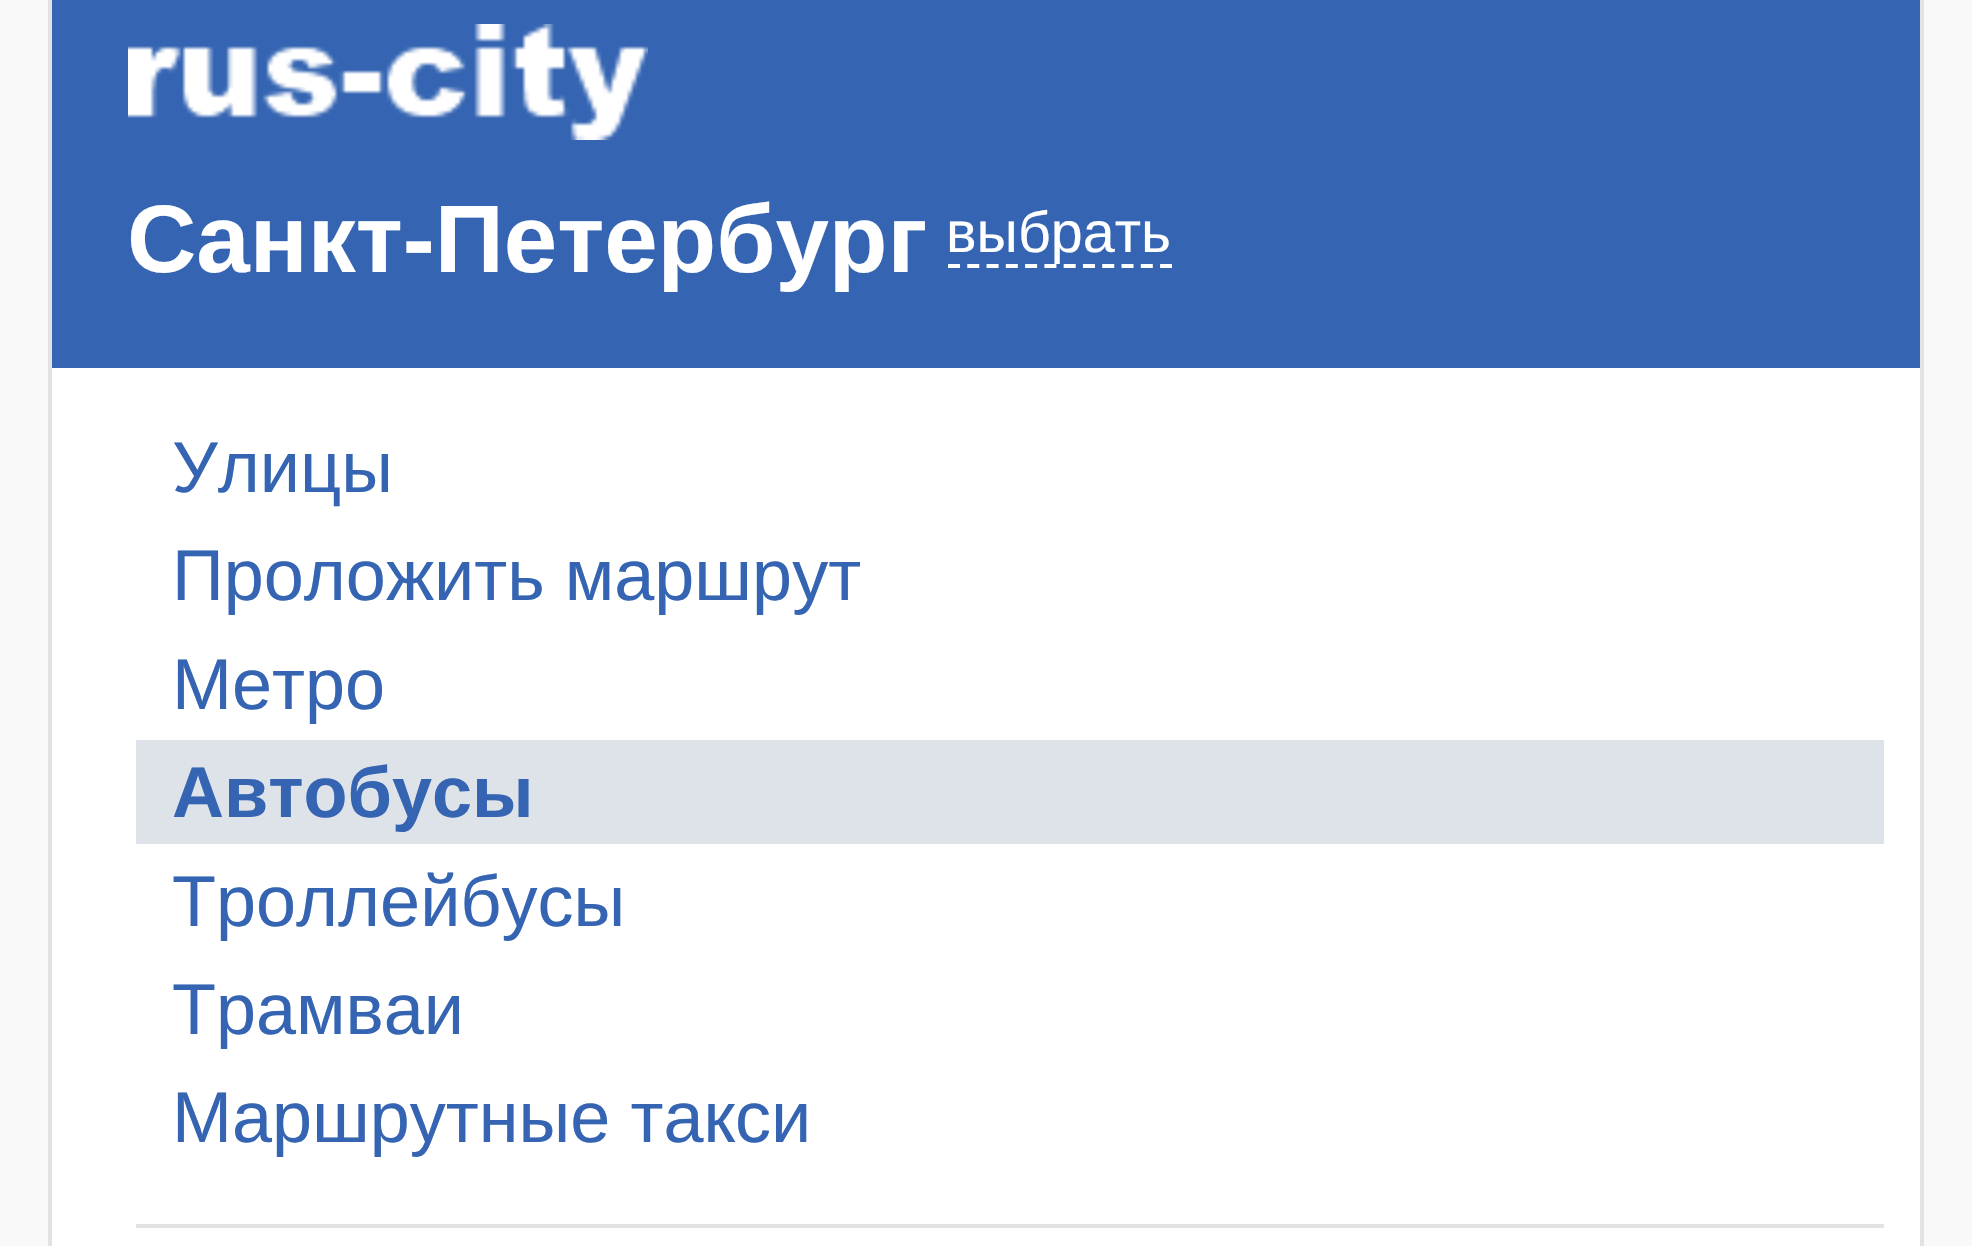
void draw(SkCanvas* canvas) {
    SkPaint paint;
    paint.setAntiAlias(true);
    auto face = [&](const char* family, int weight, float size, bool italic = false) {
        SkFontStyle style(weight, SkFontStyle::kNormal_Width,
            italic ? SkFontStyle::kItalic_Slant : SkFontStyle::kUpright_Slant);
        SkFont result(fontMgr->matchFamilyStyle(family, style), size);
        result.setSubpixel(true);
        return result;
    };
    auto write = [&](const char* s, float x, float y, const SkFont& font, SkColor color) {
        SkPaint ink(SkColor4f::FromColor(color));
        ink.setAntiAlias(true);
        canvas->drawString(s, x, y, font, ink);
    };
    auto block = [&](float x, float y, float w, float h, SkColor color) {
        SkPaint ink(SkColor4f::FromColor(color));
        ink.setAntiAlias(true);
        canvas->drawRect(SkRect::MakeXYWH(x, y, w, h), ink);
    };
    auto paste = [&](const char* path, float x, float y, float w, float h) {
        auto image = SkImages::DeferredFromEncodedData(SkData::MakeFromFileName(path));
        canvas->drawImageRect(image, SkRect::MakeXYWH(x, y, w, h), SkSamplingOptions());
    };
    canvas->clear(SkColorSetRGB(249, 249, 249));
    block(52, 368, 1868, 878, SK_ColorWHITE);
    block(1920, 0, 4, 1246, SkColorSetRGB(227, 227, 227));
    block(48, 0, 4, 1246, SkColorSetRGB(227, 227, 227));
    block(52, 0, 1868, 368, SkColorSetRGB(53, 101, 178));
    paste("pic1.png", 128, 24, 520, 116);
    auto kFont1 = face("Liberation Sans", 700, 96);
    write("Санкт-Петербург", 127, 272, kFont1, SK_ColorWHITE);
    auto kFont2 = face("Liberation Sans", 400, 57.5f);
    write("выбрать", 946, 252, kFont2, SK_ColorWHITE);
    paint.setStyle(SkPaint::kStroke_Style);
    paint.setStrokeWidth(4);
    paint.setColor(SK_ColorWHITE);
    paint.setPathEffect(SkDashPathEffect::Make({{12, 7.28f}}, 0));
    canvas->drawPath(SkPathBuilder().moveTo(948, 266).lineTo(1172, 266).detach(), paint);
    paint.setPathEffect(nullptr);
    block(136, 1224, 1748, 4, SkColorSetRGB(227, 227, 227));
    auto kFont3 = face("Liberation Sans", 400, 72);
    write("Улицы", 172, 492, kFont3, SkColorSetRGB(53, 101, 178));
    write("Проложить маршрут", 172, 600, kFont3, SkColorSetRGB(53, 101, 178));
    write("Метро", 172, 709, kFont3, SkColorSetRGB(53, 101, 178));
    block(136, 740, 1748, 104, SkColorSetRGB(222, 227, 234));
    auto kFont4 = face("Liberation Sans", 700, 72);
    write("Автобусы", 172, 817, kFont4, SkColorSetRGB(53, 101, 178));
    write("Троллейбусы", 172, 926, kFont3, SkColorSetRGB(53, 101, 178));
    write("Трамваи", 172, 1034, kFont3, SkColorSetRGB(53, 101, 178));
    write("Маршрутные такси", 172, 1142, kFont3, SkColorSetRGB(53, 101, 178));
}
